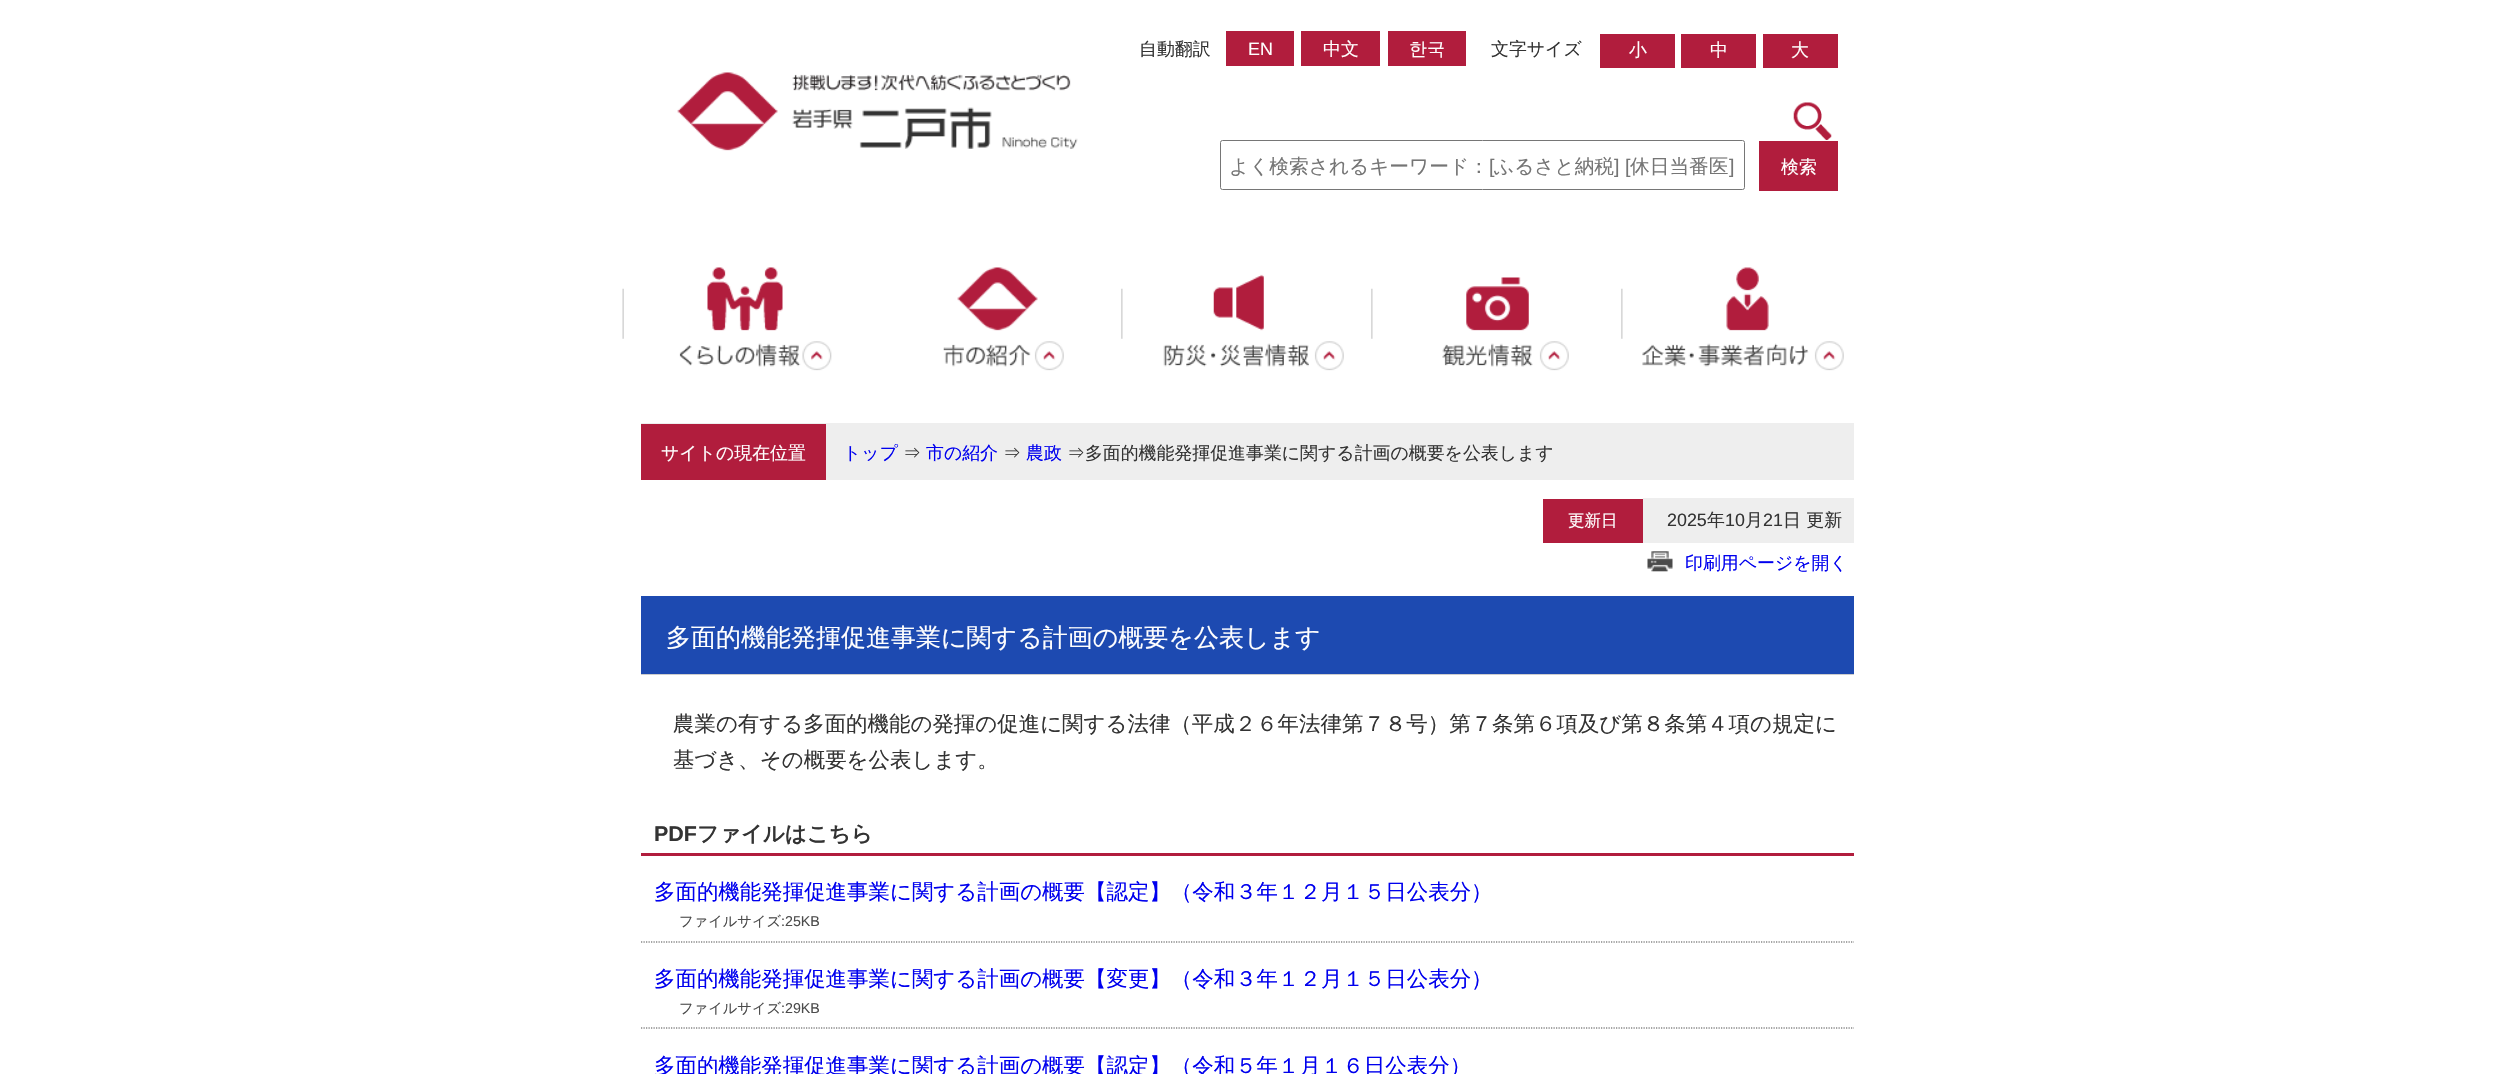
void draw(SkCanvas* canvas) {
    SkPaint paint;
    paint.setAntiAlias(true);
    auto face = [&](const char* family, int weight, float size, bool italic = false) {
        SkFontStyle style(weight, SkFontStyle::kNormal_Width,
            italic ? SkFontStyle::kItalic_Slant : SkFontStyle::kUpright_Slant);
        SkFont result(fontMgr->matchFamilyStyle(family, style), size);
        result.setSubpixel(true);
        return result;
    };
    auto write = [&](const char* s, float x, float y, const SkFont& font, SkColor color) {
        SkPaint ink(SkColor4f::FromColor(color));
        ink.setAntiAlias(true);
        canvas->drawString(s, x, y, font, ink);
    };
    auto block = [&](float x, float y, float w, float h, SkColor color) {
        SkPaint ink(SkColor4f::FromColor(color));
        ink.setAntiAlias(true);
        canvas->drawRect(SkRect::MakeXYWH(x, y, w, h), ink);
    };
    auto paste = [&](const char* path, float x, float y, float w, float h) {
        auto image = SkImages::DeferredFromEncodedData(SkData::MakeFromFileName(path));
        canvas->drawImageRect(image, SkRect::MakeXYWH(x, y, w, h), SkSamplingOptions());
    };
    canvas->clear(SK_ColorWHITE);
    paste("pic1.png", 677, 72, 401, 79);
    auto kFont1 = face("WenQuanYi Zen Hei", 500, 17.9f);
    write("自動翻訳", 1139, 55, kFont1, SkColorSetRGB(51, 51, 51));
    block(1226, 31, 68, 35, SkColorSetRGB(177, 29, 61));
    auto kFont2 = face("Liberation Sans", 400, 17.9f);
    write("EN", 1248, 55, kFont2, SK_ColorWHITE);
    block(1301, 31, 79, 35, SkColorSetRGB(177, 29, 61));
    write("中文", 1323, 55, kFont1, SK_ColorWHITE);
    block(1388, 31, 78, 35, SkColorSetRGB(177, 29, 61));
    write("한국", 1409, 55, kFont1, SK_ColorWHITE);
    write("文字サイズ", 1491, 55, kFont1, SkColorSetRGB(51, 51, 51));
    block(1600, 34, 75, 34, SkColorSetRGB(177, 29, 61));
    write("小", 1629, 56, kFont1, SK_ColorWHITE);
    block(1681, 34, 75, 34, SkColorSetRGB(177, 29, 61));
    write("中", 1710, 56, kFont1, SK_ColorWHITE);
    block(1763, 34, 75, 34, SkColorSetRGB(177, 29, 61));
    write("大", 1791, 56, kFont1, SK_ColorWHITE);
    paste("pic2.png", 1793, 102, 39, 38);
    paint.setStyle(SkPaint::kStroke_Style);
    paint.setStrokeWidth(1);
    paint.setColor(SkColorSetRGB(118, 118, 118));
    canvas->drawRoundRect(SkRect::MakeXYWH(1220.5f, 140.5f, 524, 49), 2, 2, paint);
    auto kFont3 = face("WenQuanYi Zen Hei", 500, 19.7f);
    write("よく検索されるキーワード：", 1229, 173, kFont3, SkColorSetRGB(117, 117, 117));
    auto kFont4 = face("Liberation Sans", 400, 19.7f);
    write("[", 1489, 173, kFont4, SkColorSetRGB(117, 117, 117));
    write("ふるさと納税", 1494, 173, kFont3, SkColorSetRGB(117, 117, 117));
    write("] [", 1614, 173, kFont4, SkColorSetRGB(117, 117, 117));
    write("休日当番医", 1630, 173, kFont3, SkColorSetRGB(117, 117, 117));
    write("]", 1729, 173, kFont4, SkColorSetRGB(117, 117, 117));
    block(1759, 141, 79, 50, SkColorSetRGB(177, 29, 61));
    write("検索", 1781, 173, kFont1, SK_ColorWHITE);
    paste("pic3.png", 622, 267, 210, 104);
    paste("pic4.png", 943, 267, 121, 104);
    paste("pic5.png", 1121, 274, 223, 97);
    paste("pic6.png", 1371, 277, 198, 94);
    paste("pic7.png", 1621, 267, 223, 104);
    block(641, 423, 1213, 57, SkColorSetRGB(238, 238, 238));
    block(641, 424, 185, 56, SkColorSetRGB(177, 29, 61));
    write("サイトの現在位置", 661, 459, kFont1, SK_ColorWHITE);
    write("トップ", 843, 459, kFont1, SkColorSetRGB(0, 0, 238));
    write("⇒", 903, 459, kFont1, SkColorSetRGB(51, 51, 51));
    write("市の紹介", 926, 459, kFont1, SkColorSetRGB(0, 0, 238));
    write("⇒", 1003, 459, kFont1, SkColorSetRGB(51, 51, 51));
    write("農政", 1026, 459, kFont1, SkColorSetRGB(0, 0, 238));
    write("⇒多面的機能発揮促進事業に関する計画の概要を公表します", 1067, 459, kFont1, SkColorSetRGB(51, 51, 51));
    block(1543, 499, 100, 44, SkColorSetRGB(177, 29, 61));
    auto kFont5 = face("WenQuanYi Zen Hei", 500, 16.5f);
    write("更新日", 1568, 526, kFont5, SK_ColorWHITE);
    block(1643, 498, 211, 45, SkColorSetRGB(238, 238, 238));
    write("2025", 1667, 526, kFont2, SkColorSetRGB(51, 51, 51));
    write("年", 1707, 526, kFont1, SkColorSetRGB(51, 51, 51));
    write("10", 1725, 526, kFont2, SkColorSetRGB(51, 51, 51));
    write("月", 1745, 526, kFont1, SkColorSetRGB(51, 51, 51));
    write("21", 1763, 526, kFont2, SkColorSetRGB(51, 51, 51));
    write("日 更新", 1783, 526, kFont1, SkColorSetRGB(51, 51, 51));
    paste("pic8.png", 1647, 551, 26, 21);
    write("印刷用ページを開く", 1685, 569, kFont1, SkColorSetRGB(0, 0, 238));
    block(641, 674, 1213, 1, SkColorSetRGB(204, 204, 204));
    block(641, 596, 1213, 78, SkColorSetRGB(29, 74, 177));
    auto kFont6 = face("WenQuanYi Zen Hei", 500, 25);
    write("多面的機能発揮促進事業に関する計画の概要を公表します", 666, 646, kFont6, SK_ColorWHITE);
    auto kFont7 = face("WenQuanYi Zen Hei", 500, 21.45f);
    write("農業の有する多面的機能の発揮の促進に関する法律（平成２６年法律第７８号）第７条第６項及び第８条第４項の規定に", 673, 731, kFont7, SkColorSetRGB(51, 51, 51));
    write("基づき、その概要を公表します。", 673, 767, kFont7, SkColorSetRGB(51, 51, 51));
    block(641, 853, 1213, 3, SkColorSetRGB(177, 29, 61));
    auto kFont8 = face("Liberation Sans", 700, 21.45f);
    write("PDF", 654, 841, kFont8, SkColorSetRGB(51, 51, 51));
    auto kFont9 = face("WenQuanYi Zen Hei", 700, 21.45f);
    write("ファイルはこちら", 697, 841, kFont9, SkColorSetRGB(51, 51, 51));
    paint.setStrokeWidth(1.2f);
    paint.setColor(SkColorSetRGB(76, 76, 76));
    paint.setPathEffect(SkDashPathEffect::Make({{1.25f, 1.25f}}, 0));
    canvas->drawPath(SkPathBuilder().moveTo(641, 942).lineTo(1854, 942).detach(), paint);
    paint.setPathEffect(nullptr);
    write("多面的機能発揮促進事業に関する計画の概要【認定】（令和３年１２月１５日公表分）", 654, 899, kFont7, SkColorSetRGB(0, 0, 238));
    auto kFont10 = face("WenQuanYi Zen Hei", 500, 14.25f);
    write("ファイルサイズ", 679, 926, kFont10, SkColorSetRGB(76, 76, 76));
    auto kFont11 = face("Liberation Sans", 400, 14.25f);
    write(":25KB", 781, 926, kFont11, SkColorSetRGB(76, 76, 76));
    paint.setPathEffect(SkDashPathEffect::Make({{1.25f, 1.25f}}, 0));
    canvas->drawPath(SkPathBuilder().moveTo(641, 1028).lineTo(1854, 1028).detach(), paint);
    paint.setPathEffect(nullptr);
    write("多面的機能発揮促進事業に関する計画の概要【変更】（令和３年１２月１５日公表分）", 654, 986, kFont7, SkColorSetRGB(0, 0, 238));
    write("ファイルサイズ", 679, 1013, kFont10, SkColorSetRGB(76, 76, 76));
    write(":29KB", 781, 1013, kFont11, SkColorSetRGB(76, 76, 76));
    write("多面的機能発揮促進事業に関する計画の概要【認定】（令和５年１月１６日公表分）", 654, 1073, kFont7, SkColorSetRGB(0, 0, 238));
}
